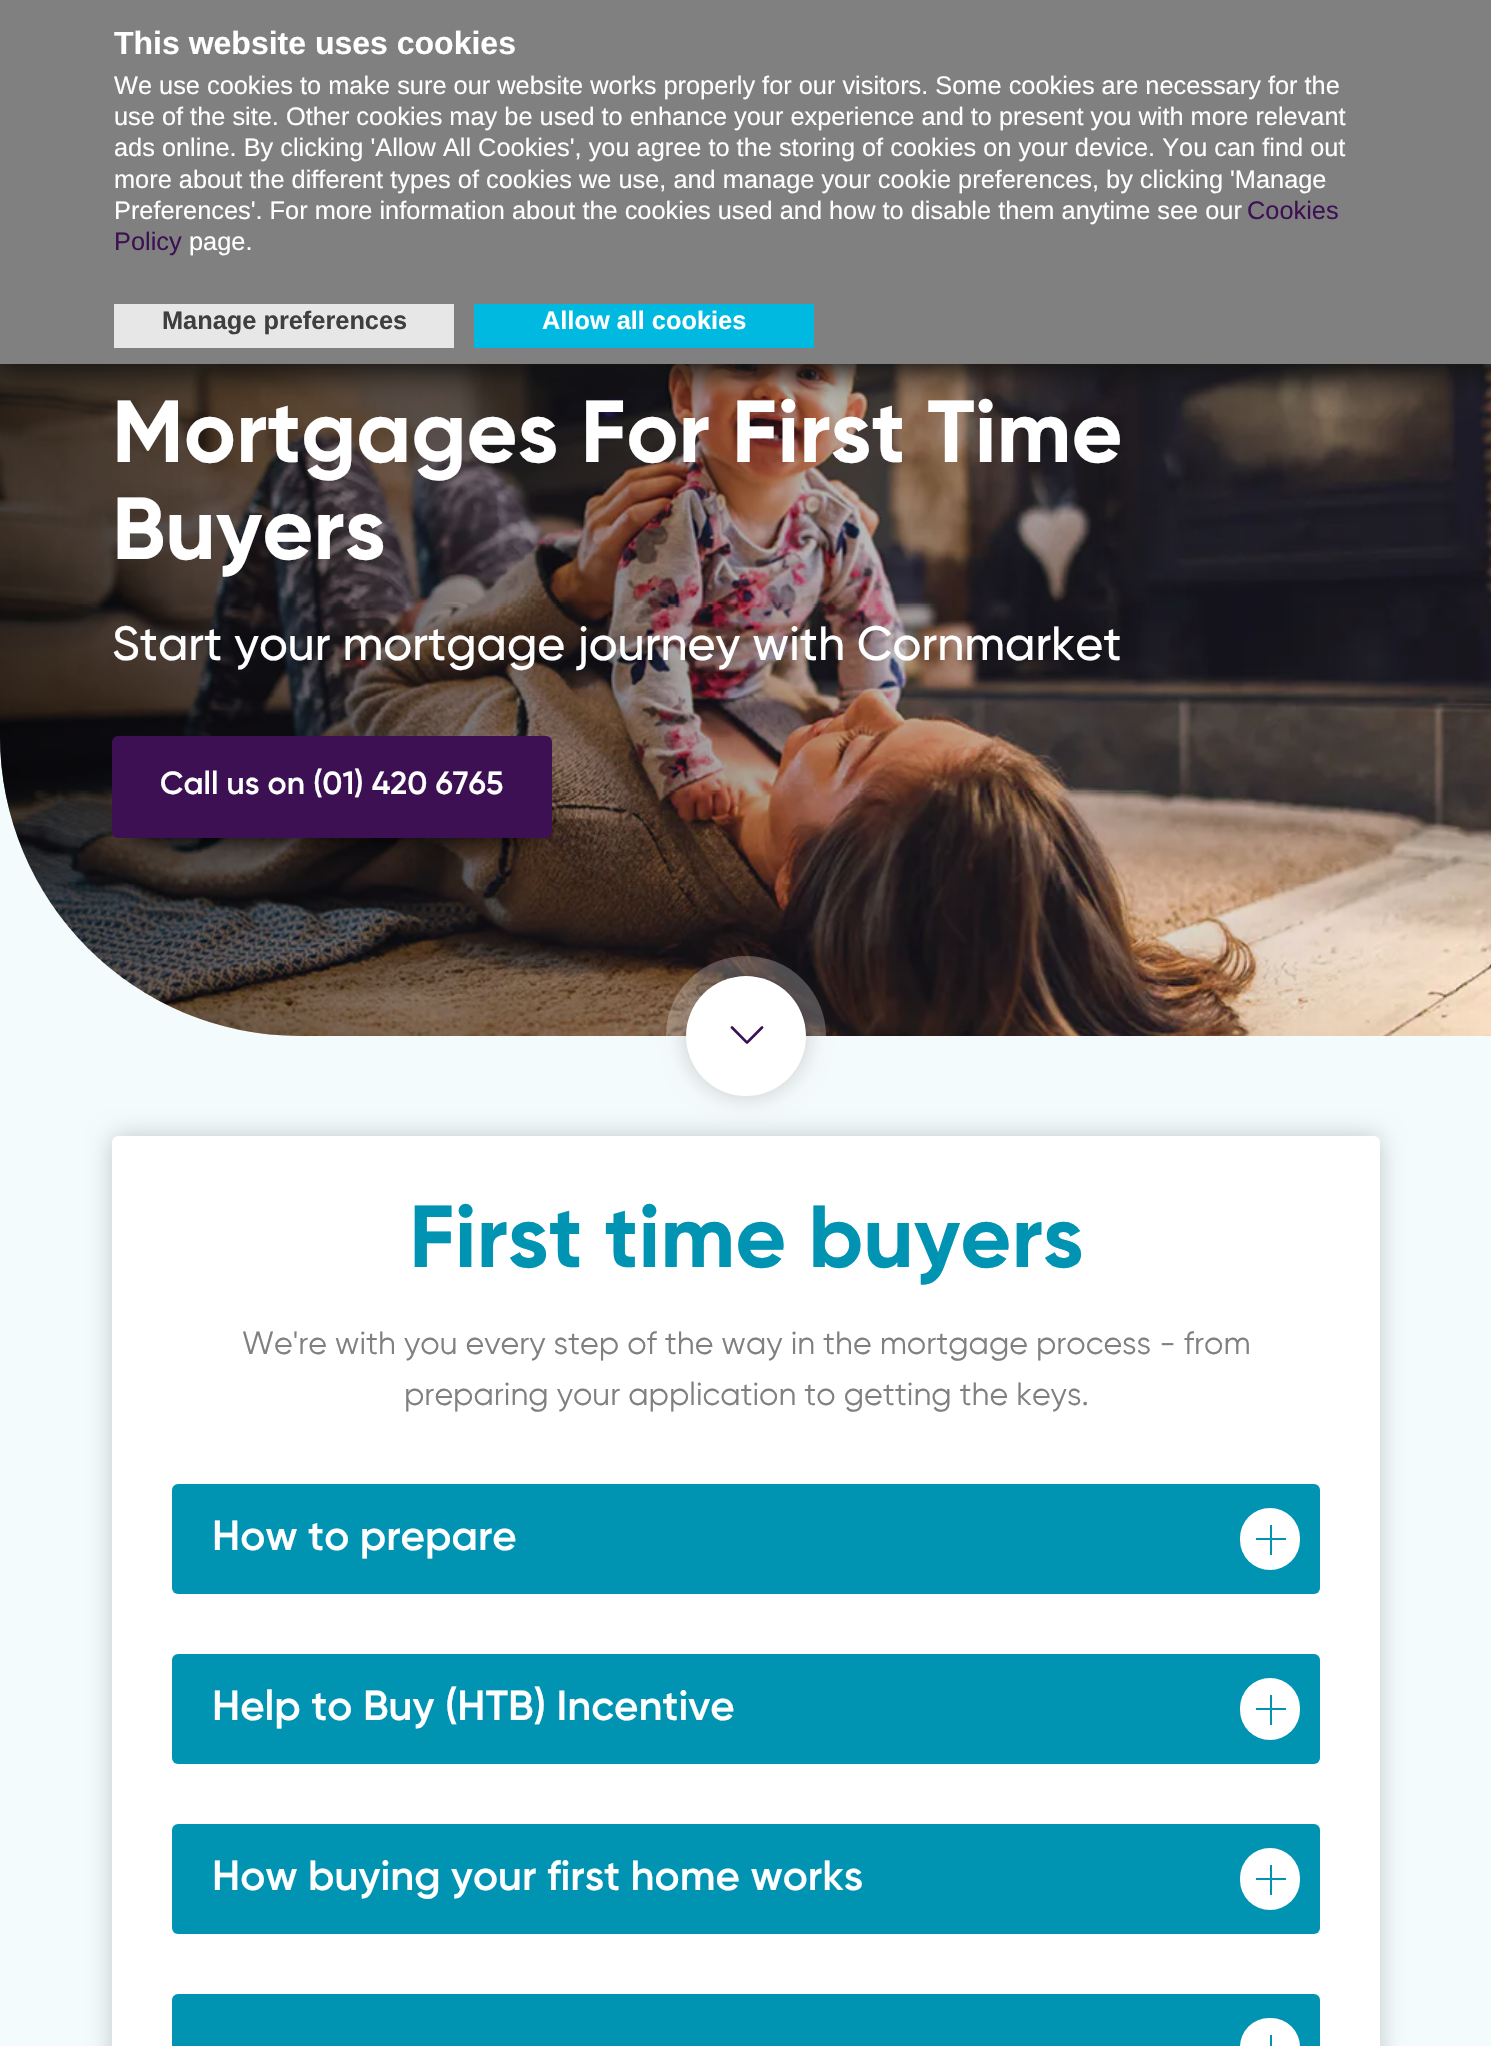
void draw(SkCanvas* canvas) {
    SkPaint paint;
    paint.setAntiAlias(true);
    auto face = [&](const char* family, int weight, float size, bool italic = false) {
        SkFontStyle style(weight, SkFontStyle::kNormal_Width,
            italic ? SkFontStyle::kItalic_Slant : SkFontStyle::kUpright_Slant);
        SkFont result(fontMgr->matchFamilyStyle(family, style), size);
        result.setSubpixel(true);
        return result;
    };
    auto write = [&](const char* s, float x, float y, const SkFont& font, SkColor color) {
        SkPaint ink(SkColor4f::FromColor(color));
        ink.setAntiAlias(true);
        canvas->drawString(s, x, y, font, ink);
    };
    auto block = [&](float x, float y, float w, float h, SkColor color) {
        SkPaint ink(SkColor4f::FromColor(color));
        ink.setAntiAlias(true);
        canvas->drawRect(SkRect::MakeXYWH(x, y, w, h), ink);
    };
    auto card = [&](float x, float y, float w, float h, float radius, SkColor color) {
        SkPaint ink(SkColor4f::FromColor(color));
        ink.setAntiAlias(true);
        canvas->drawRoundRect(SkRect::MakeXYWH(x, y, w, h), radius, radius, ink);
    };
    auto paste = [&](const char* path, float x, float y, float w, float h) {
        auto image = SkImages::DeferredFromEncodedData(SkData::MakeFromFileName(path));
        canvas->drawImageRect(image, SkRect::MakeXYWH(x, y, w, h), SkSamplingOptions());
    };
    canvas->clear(SkColorSetRGB(243, 251, 252));
    paste("pic1.png", 0, 364, 1491, 672);
    {
        const SkColor colors[] = {SkColorSetARGB(168, 0, 0, 0), SkColorSetARGB(0, 0, 0, 0)};
        const float stops[] = {0, 1};
        const SkPoint ends[] = {{0, 588}, {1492, 588}};
        paint.setShader(SkGradientShader::MakeLinear(ends, colors, stops, 2, SkTileMode::kClamp));
        paint.setAlpha(255);
    }
    canvas->drawPath(SkPathBuilder().moveTo(0, 140).lineTo(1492, 140).lineTo(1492, 1036).lineTo(300, 1036).cubicTo(134.5f, 1036, 0, 901.5f, 0, 736).close().detach(), paint);
    paint.setShader(nullptr);
    paint.setColor(SkColorSetRGB(18, 18, 18));
    paint.setMaskFilter(SkMaskFilter::MakeBlur(kNormal_SkBlurStyle, 14));
    canvas->drawRect(SkRect::MakeXYWH(0, 0, 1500, 372), paint);
    paint.setMaskFilter(nullptr);
    block(0, 0, 1491, 364, SkColorSetRGB(128, 128, 128));
    auto kFont1 = face("Liberation Sans", 700, 32);
    write("This website uses cookies", 114, 54, kFont1, SK_ColorWHITE);
    auto kFont2 = face("Liberation Sans", 400, 25.35f);
    write("We use cookies to make sure our website works properly for our visitors. Some cookies are necessary for the", 114, 94, kFont2, SK_ColorWHITE);
    write("use of the site. Other cookies may be used to enhance your experience and to present you with more relevant", 114, 125, kFont2, SK_ColorWHITE);
    write("ads online. By clicking 'Allow All Cookies', you agree to the storing of cookies on your device. You can find out", 114, 156, kFont2, SK_ColorWHITE);
    write("more about the different types of cookies we use, and manage your cookie preferences, by clicking 'Manage", 114, 188, kFont2, SK_ColorWHITE);
    write("Preferences'. For more information about the cookies used and how to disable them anytime see our", 114, 219, kFont2, SK_ColorWHITE);
    write("Cookies", 1247, 219, kFont2, SkColorSetRGB(60, 16, 83));
    write("Policy", 114, 250, kFont2, SkColorSetRGB(60, 16, 83));
    write("page.", 189, 250, kFont2, SK_ColorWHITE);
    block(114, 304, 340, 44, SkColorSetRGB(231, 231, 231));
    auto kFont3 = face("Liberation Sans", 700, 25.35f);
    write("Manage preferences", 162, 329, kFont3, SkColorSetRGB(63, 63, 63));
    block(474, 304, 340, 44, SkColorSetRGB(0, 185, 224));
    write("Allow all cookies", 542, 329, kFont3, SK_ColorWHITE);
    auto kFont4 = face("Gilroy", 400, 88);
    write("Mortgages For First Time", 112, 462, kFont4, SK_ColorWHITE);
    write("Buyers", 112, 559, kFont4, SK_ColorWHITE);
    auto kFont5 = face("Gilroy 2", 400, 48);
    write("Start your mortgage journey with Cornmarket", 112, 660, kFont5, SK_ColorWHITE);
    paint.setColor(SkColorSetARGB(204, 0, 0, 0));
    paint.setMaskFilter(SkMaskFilter::MakeBlur(kNormal_SkBlurStyle, 10));
    canvas->drawRect(SkRect::MakeXYWH(132, 778, 400, 62), paint);
    paint.setMaskFilter(nullptr);
    card(112, 736, 440, 102, 6, SkColorSetRGB(60, 16, 83));
    auto kFont6 = face("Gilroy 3", 400, 32);
    write("Call us on (01) 420 6765", 160, 794, kFont6, SK_ColorWHITE);
    paint.setColor(SkColorSetARGB(51, 0, 0, 0));
    paint.setMaskFilter(SkMaskFilter::MakeBlur(kNormal_SkBlurStyle, 12));
    canvas->drawRoundRect(SkRect::MakeXYWH(112, 1136, 1268, 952), 6, 6, paint);
    paint.setMaskFilter(nullptr);
    paint.setStyle(SkPaint::kStroke_Style);
    paint.setStrokeWidth(20);
    paint.setColor(SkColorSetARGB(64, 255, 255, 255));
    canvas->drawCircle(746, 1036, 70, paint);
    paint.setStyle(SkPaint::kFill_Style);
    paint.setColor(SkColorSetARGB(51, 0, 0, 0));
    paint.setMaskFilter(SkMaskFilter::MakeBlur(kNormal_SkBlurStyle, 12));
    canvas->drawRoundRect(SkRect::MakeXYWH(686, 976, 120, 120), 60, 60, paint);
    paint.setMaskFilter(nullptr);
    paint.setColor(SK_ColorWHITE);
    canvas->drawCircle(746, 1036, 60, paint);
    paste("pic2.png", 730, 1026, 34, 18);
    card(112, 1136, 1268, 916, 6, SK_ColorWHITE);
    write("First time buyers", 409, 1267, kFont4, SkColorSetRGB(0, 147, 178));
    auto kFont7 = face("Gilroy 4", 400, 32);
    write("We're with you every step of the way in the mortgage process - from", 242, 1354, kFont7, SkColorSetRGB(128, 128, 128));
    write("preparing your application to getting the keys.", 404, 1405, kFont7, SkColorSetRGB(128, 128, 128));
    card(172, 1484, 1148, 110, 6, SkColorSetRGB(0, 147, 178));
    auto kFont8 = face("Gilroy 3", 400, 42);
    write("How to prepare", 212, 1550, kFont8, SK_ColorWHITE);
    card(1240, 1508, 60, 62, 30, SK_ColorWHITE);
    block(1256, 1538, 30, 2, SkColorSetRGB(0, 147, 178));
    block(1270, 1525, 2, 30, SkColorSetRGB(0, 147, 178));
    card(172, 1654, 1148, 110, 6, SkColorSetRGB(0, 147, 178));
    write("Help to Buy (HTB) Incentive", 212, 1720, kFont8, SK_ColorWHITE);
    card(1240, 1678, 60, 62, 30, SK_ColorWHITE);
    block(1256, 1708, 30, 2, SkColorSetRGB(0, 147, 178));
    block(1270, 1695, 2, 30, SkColorSetRGB(0, 147, 178));
    card(172, 1824, 1148, 110, 6, SkColorSetRGB(0, 147, 178));
    write("How buying your first home works", 212, 1890, kFont8, SK_ColorWHITE);
    card(1240, 1848, 60, 62, 30, SK_ColorWHITE);
    block(1256, 1878, 30, 2, SkColorSetRGB(0, 147, 178));
    block(1270, 1865, 2, 30, SkColorSetRGB(0, 147, 178));
    card(172, 1994, 1148, 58, 6, SkColorSetRGB(0, 147, 178));
    card(1240, 2018, 60, 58, 30, SK_ColorWHITE);
    block(1270, 2035, 2, 11, SkColorSetRGB(0, 147, 178));
}
